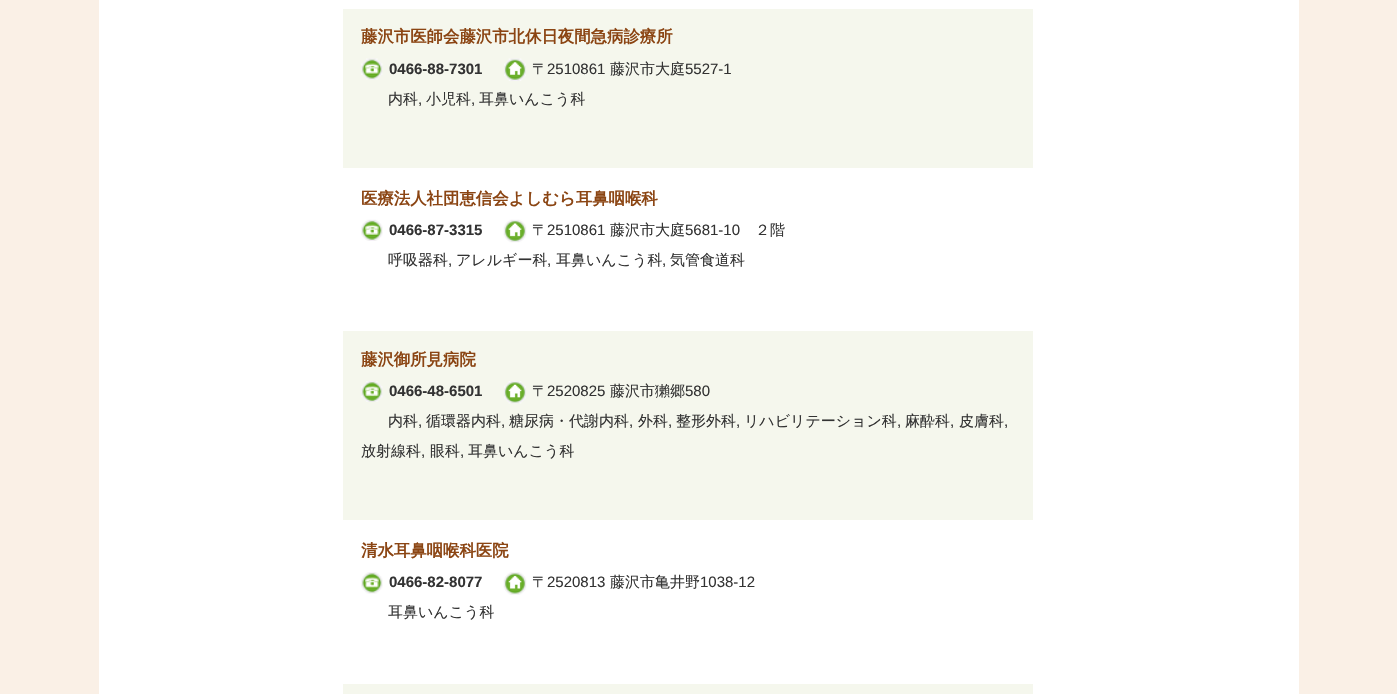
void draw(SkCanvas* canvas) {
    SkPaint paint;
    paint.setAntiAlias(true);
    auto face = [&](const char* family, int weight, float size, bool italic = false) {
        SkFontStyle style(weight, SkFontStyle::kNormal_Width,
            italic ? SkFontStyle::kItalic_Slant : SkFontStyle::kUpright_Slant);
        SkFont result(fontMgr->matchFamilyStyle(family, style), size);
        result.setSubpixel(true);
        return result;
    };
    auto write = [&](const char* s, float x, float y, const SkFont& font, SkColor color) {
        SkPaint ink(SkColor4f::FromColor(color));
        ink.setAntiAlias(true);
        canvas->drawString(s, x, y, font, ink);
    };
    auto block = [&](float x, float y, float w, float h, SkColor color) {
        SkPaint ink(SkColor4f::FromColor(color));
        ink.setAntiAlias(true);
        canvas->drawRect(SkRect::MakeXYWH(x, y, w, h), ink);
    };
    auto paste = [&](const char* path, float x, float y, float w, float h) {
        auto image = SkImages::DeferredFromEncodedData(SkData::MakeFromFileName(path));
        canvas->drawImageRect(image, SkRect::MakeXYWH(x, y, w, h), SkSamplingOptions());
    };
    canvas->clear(SkColorSetRGB(250, 240, 230));
    block(99, 0, 1200, 694, SK_ColorWHITE);
    block(343, 9, 690, 159, SkColorSetRGB(245, 247, 237));
    auto kFont1 = face("WenQuanYi Zen Hei", 700, 16.4f);
    write("藤沢市医師会藤沢市北休日夜間急病診療所", 361, 42, kFont1, SkColorSetRGB(139, 69, 19));
    paste("pic1.png", 361, 58, 22, 22);
    auto kFont2 = face("Liberation Sans", 700, 15);
    write("0466-88-7301", 389, 74, kFont2, SkColorSetRGB(51, 51, 51));
    paste("pic2.png", 504, 58, 22, 23);
    auto kFont3 = face("WenQuanYi Zen Hei", 500, 15);
    write("〒", 532, 74, kFont3, SkColorSetRGB(51, 51, 51));
    auto kFont4 = face("Liberation Sans", 400, 15);
    write("2510861", 547, 74, kFont4, SkColorSetRGB(51, 51, 51));
    write("藤沢市大庭", 610, 74, kFont3, SkColorSetRGB(51, 51, 51));
    write("5527-1", 685, 74, kFont4, SkColorSetRGB(51, 51, 51));
    write("内科", 388, 104, kFont3, SkColorSetRGB(51, 51, 51));
    write(",", 418, 104, kFont4, SkColorSetRGB(51, 51, 51));
    write("小児科", 426, 104, kFont3, SkColorSetRGB(51, 51, 51));
    write(",", 471, 104, kFont4, SkColorSetRGB(51, 51, 51));
    write("耳鼻いんこう科", 479, 104, kFont3, SkColorSetRGB(51, 51, 51));
    write("医療法人社団恵信会よしむら耳鼻咽喉科", 361, 204, kFont1, SkColorSetRGB(139, 69, 19));
    paste("pic3.png", 361, 219, 22, 22);
    write("0466-87-3315", 389, 235, kFont2, SkColorSetRGB(51, 51, 51));
    paste("pic4.png", 503, 219, 24, 24);
    write("〒", 532, 235, kFont3, SkColorSetRGB(51, 51, 51));
    write("2510861", 547, 235, kFont4, SkColorSetRGB(51, 51, 51));
    write("藤沢市大庭", 610, 235, kFont3, SkColorSetRGB(51, 51, 51));
    write("5681-10", 685, 235, kFont4, SkColorSetRGB(51, 51, 51));
    write("２階", 755, 235, kFont3, SkColorSetRGB(51, 51, 51));
    write("呼吸器科", 388, 265, kFont3, SkColorSetRGB(51, 51, 51));
    write(",", 448, 265, kFont4, SkColorSetRGB(51, 51, 51));
    write("アレルギー科", 456, 265, kFont3, SkColorSetRGB(51, 51, 51));
    write(",", 547, 265, kFont4, SkColorSetRGB(51, 51, 51));
    write("耳鼻いんこう科", 556, 265, kFont3, SkColorSetRGB(51, 51, 51));
    write(",", 662, 265, kFont4, SkColorSetRGB(51, 51, 51));
    write("気管食道科", 670, 265, kFont3, SkColorSetRGB(51, 51, 51));
    block(343, 331, 690, 189, SkColorSetRGB(245, 247, 237));
    write("藤沢御所見病院", 361, 365, kFont1, SkColorSetRGB(139, 69, 19));
    paste("pic5.png", 361, 381, 22, 21);
    write("0466-48-6501", 389, 396, kFont2, SkColorSetRGB(51, 51, 51));
    paste("pic6.png", 504, 381, 22, 23);
    write("〒", 532, 396, kFont3, SkColorSetRGB(51, 51, 51));
    write("2520825", 547, 396, kFont4, SkColorSetRGB(51, 51, 51));
    write("藤沢市獺郷", 610, 396, kFont3, SkColorSetRGB(51, 51, 51));
    write("580", 685, 396, kFont4, SkColorSetRGB(51, 51, 51));
    write("内科", 388, 426, kFont3, SkColorSetRGB(51, 51, 51));
    write(",", 418, 426, kFont4, SkColorSetRGB(51, 51, 51));
    write("循環器内科", 426, 426, kFont3, SkColorSetRGB(51, 51, 51));
    write(",", 501, 426, kFont4, SkColorSetRGB(51, 51, 51));
    write("糖尿病・代謝内科", 509, 426, kFont3, SkColorSetRGB(51, 51, 51));
    write(",", 629, 426, kFont4, SkColorSetRGB(51, 51, 51));
    write("外科", 638, 426, kFont3, SkColorSetRGB(51, 51, 51));
    write(",", 668, 426, kFont4, SkColorSetRGB(51, 51, 51));
    write("整形外科", 676, 426, kFont3, SkColorSetRGB(51, 51, 51));
    write(",", 736, 426, kFont4, SkColorSetRGB(51, 51, 51));
    write("リハビリテーション科", 744, 426, kFont3, SkColorSetRGB(51, 51, 51));
    write(",", 897, 426, kFont4, SkColorSetRGB(51, 51, 51));
    write("麻酔科", 905, 426, kFont3, SkColorSetRGB(51, 51, 51));
    write(",", 950, 426, kFont4, SkColorSetRGB(51, 51, 51));
    write("皮膚科", 959, 426, kFont3, SkColorSetRGB(51, 51, 51));
    write(",", 1004, 426, kFont4, SkColorSetRGB(51, 51, 51));
    write("放射線科", 361, 456, kFont3, SkColorSetRGB(51, 51, 51));
    write(",", 421, 456, kFont4, SkColorSetRGB(51, 51, 51));
    write("眼科", 430, 456, kFont3, SkColorSetRGB(51, 51, 51));
    write(",", 460, 456, kFont4, SkColorSetRGB(51, 51, 51));
    write("耳鼻いんこう科", 468, 456, kFont3, SkColorSetRGB(51, 51, 51));
    write("清水耳鼻咽喉科医院", 361, 556, kFont1, SkColorSetRGB(139, 69, 19));
    paste("pic7.png", 361, 572, 22, 22);
    write("0466-82-8077", 389, 587, kFont2, SkColorSetRGB(51, 51, 51));
    paste("pic8.png", 503, 572, 24, 23);
    write("〒", 532, 587, kFont3, SkColorSetRGB(51, 51, 51));
    write("2520813", 547, 587, kFont4, SkColorSetRGB(51, 51, 51));
    write("藤沢市亀井野", 610, 587, kFont3, SkColorSetRGB(51, 51, 51));
    write("1038-12", 700, 587, kFont4, SkColorSetRGB(51, 51, 51));
    write("耳鼻いんこう科", 388, 617, kFont3, SkColorSetRGB(51, 51, 51));
    block(343, 684, 690, 10, SkColorSetRGB(245, 247, 237));
}
